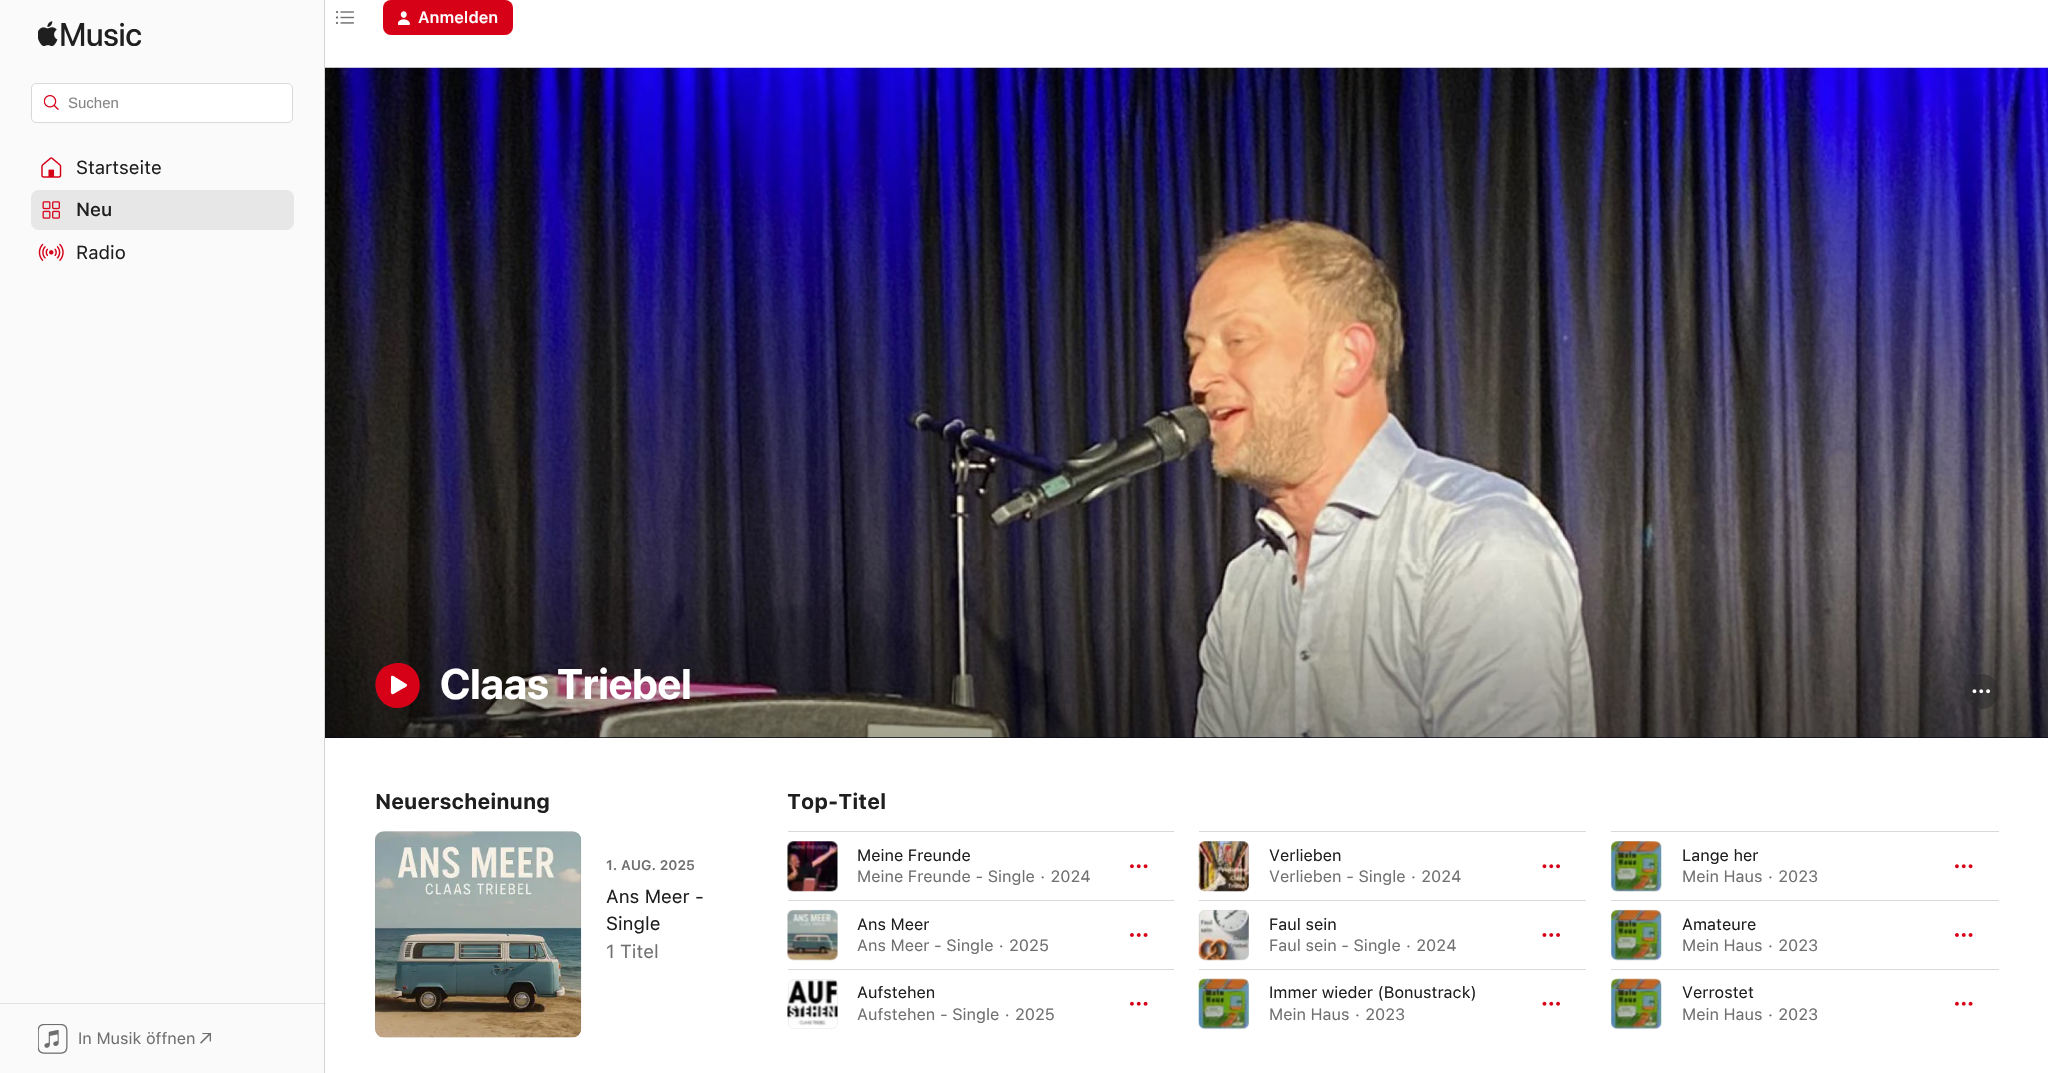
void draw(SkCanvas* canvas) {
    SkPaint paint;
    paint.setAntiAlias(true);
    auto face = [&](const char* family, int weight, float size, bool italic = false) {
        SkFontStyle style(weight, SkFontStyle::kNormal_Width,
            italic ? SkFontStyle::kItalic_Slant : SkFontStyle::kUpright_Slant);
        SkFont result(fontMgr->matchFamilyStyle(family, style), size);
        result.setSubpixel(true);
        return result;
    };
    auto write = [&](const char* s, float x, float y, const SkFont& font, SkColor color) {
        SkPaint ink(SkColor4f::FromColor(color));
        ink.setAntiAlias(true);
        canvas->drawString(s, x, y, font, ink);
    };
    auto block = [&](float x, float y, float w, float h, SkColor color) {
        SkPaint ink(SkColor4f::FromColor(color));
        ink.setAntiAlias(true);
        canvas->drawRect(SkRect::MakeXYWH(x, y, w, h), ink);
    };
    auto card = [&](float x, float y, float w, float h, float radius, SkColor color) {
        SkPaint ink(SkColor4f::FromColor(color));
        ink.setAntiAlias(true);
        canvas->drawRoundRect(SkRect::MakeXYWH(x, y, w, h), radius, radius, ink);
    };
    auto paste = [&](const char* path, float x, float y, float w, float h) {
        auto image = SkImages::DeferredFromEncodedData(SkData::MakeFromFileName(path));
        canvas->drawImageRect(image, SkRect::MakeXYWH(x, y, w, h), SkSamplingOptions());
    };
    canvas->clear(SK_ColorWHITE);
    paste("pic1.png", 335, 11, 20, 13);
    card(383, 0, 130, 35, 8, SkColorSetRGB(214, 0, 23));
    paste("pic2.png", 398, 11, 12, 14);
    auto kFont1 = face("SF", 600, 16.25f);
    write("Anmelden", 418, 23, kFont1, SK_ColorWHITE);
    block(0, 0, 324, 1073, SkColorSetRGB(250, 250, 250));
    block(0, 1003, 325, 1, SkColorSetRGB(225, 225, 225));
    block(324, 0, 1, 1073, SkColorSetRGB(213, 213, 213));
    block(324, 1003, 1, 1, SkColorSetRGB(192, 192, 192));
    paste("pic3.png", 38, 21, 103, 25);
    paint.setColor(SK_ColorWHITE);
    canvas->drawRoundRect(SkRect::MakeXYWH(31.5f, 83.5f, 261, 39), 4.5f, 4.5f, paint);
    paint.setStyle(SkPaint::kStroke_Style);
    paint.setStrokeWidth(1);
    paint.setColor(SkColorSetRGB(217, 217, 217));
    canvas->drawRoundRect(SkRect::MakeXYWH(31.5f, 83.5f, 261, 39), 4.5f, 4.5f, paint);
    paste("pic4.png", 44, 95, 15, 15);
    auto kFont2 = face("Liberation Sans", 400, 15);
    write("Suchen", 68, 108, kFont2, SkColorSetRGB(133, 133, 133));
    paste("pic5.png", 41, 157, 21, 21);
    auto kFont3 = face("SF", 400, 18.75f);
    write("Startseite", 76, 174, kFont3, SkColorSetRGB(31, 31, 31));
    card(31, 190, 263, 40, 8, SkColorSetRGB(231, 231, 232));
    paste("pic6.png", 42, 201, 18, 18);
    auto kFont4 = face("SF", 500, 18.75f);
    write("Neu", 76, 216, kFont4, SkColorSetRGB(31, 31, 31));
    paste("pic7.png", 38, 243, 26, 18);
    write("Radio", 76, 259, kFont3, SkColorSetRGB(31, 31, 31));
    paste("pic8.png", 38, 1024, 30, 30);
    auto kFont5 = face("SF", 400, 16.25f);
    write("In Musik öffnen", 78, 1044, kFont5, SkColorSetRGB(112, 112, 112));
    paste("pic9.png", 200, 1033, 11, 11);
    block(325, 737, 1723, 1, SkColorSetRGB(11, 10, 34));
    paste("pic10.png", 325, 67, 1723, 671);
    paint.setStyle(SkPaint::kFill_Style);
    {
        const SkColor colors[] = {SkColorSetARGB(92, 0, 0, 0), SkColorSetARGB(64, 0, 0, 0), SkColorSetARGB(0, 0, 0, 0)};
        const float stops[] = {0, 0.36f, 1};
        const SkPoint ends[] = {{1187, 738}, {1187, 550}};
        paint.setShader(SkGradientShader::MakeLinear(ends, colors, stops, 3, SkTileMode::kClamp));
        paint.setAlpha(255);
    }
    canvas->drawRect(SkRect::MakeXYWH(325, 560, 1723, 178), paint);
    paint.setShader(nullptr);
    paint.setColor(SkColorSetRGB(214, 0, 23));
    canvas->drawPath(SkPathBuilder().moveTo(398, 663).cubicTo(393, 663, 388, 665, 384, 667).cubicTo(367, 680, 377, 709, 398, 708).cubicTo(428, 706, 426, 663, 398, 663).close().detach(), paint);
    paint.setColor(SK_ColorWHITE);
    canvas->drawPath(SkPathBuilder().moveTo(393.5f, 694).cubicTo(390, 696, 391, 688.5f, 391, 687.5f).lineTo(391, 676.5f).cubicTo(392, 674, 397, 678.5f, 397.5f, 678.5f).lineTo(407, 684.5f).cubicTo(408, 686.5f, 403, 688.5f, 402, 689).close().detach(), paint);
    auto kFont6 = face("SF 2", 700, 42.5f);
    write("Claas Triebel", 440, 699, kFont6, SK_ColorWHITE);
    paint.setColor(SkColorSetARGB(128, 40, 40, 40));
    canvas->drawCircle(1981.5f, 691.5f, 17.5f, paint);
    paste("pic11.png", 1972, 689, 18, 5);
    auto kFont7 = face("SF", 700, 21.25f);
    write("Neuerscheinung", 375, 809, kFont7, SkColorSetRGB(31, 31, 31));
    paste("pic12.png", 375, 831, 207, 207);
    paint.setStyle(SkPaint::kStroke_Style);
    paint.setColor(SkColorSetARGB(26, 128, 128, 128));
    canvas->drawRoundRect(SkRect::MakeXYWH(375.5f, 831.5f, 205, 206), 8.5f, 8.5f, paint);
    auto kFont8 = face("SF", 600, 13.75f);
    write("1. AUG. 2025", 606, 870, kFont8, SkColorSetRGB(112, 112, 112));
    write("Ans Meer -", 606, 903, kFont3, SkColorSetRGB(31, 31, 31));
    write("Single", 606, 930, kFont3, SkColorSetRGB(31, 31, 31));
    write("1 Titel", 606, 958, kFont3, SkColorSetRGB(112, 112, 112));
    write("Top-Titel", 787, 809, kFont7, SkColorSetRGB(31, 31, 31));
    block(788, 831, 386, 1, SkColorSetRGB(217, 217, 217));
    paste("pic13.png", 787, 841, 51, 51);
    canvas->drawRoundRect(SkRect::MakeXYWH(788.5f, 841.5f, 49, 49), 5.5f, 5.5f, paint);
    write("Meine Freunde", 857, 861, kFont5, SkColorSetRGB(31, 31, 31));
    write("Meine Freunde - Single · 2024", 857, 882, kFont5, SkColorSetRGB(112, 112, 112));
    paste("pic14.png", 1130, 864, 18, 5);
    block(1199, 831, 387, 1, SkColorSetRGB(217, 217, 217));
    paste("pic15.png", 1198, 841, 51, 51);
    canvas->drawRoundRect(SkRect::MakeXYWH(1199.5f, 841.5f, 49, 49), 5.5f, 5.5f, paint);
    write("Verlieben", 1269, 861, kFont5, SkColorSetRGB(31, 31, 31));
    write("Verlieben - Single · 2024", 1269, 882, kFont5, SkColorSetRGB(112, 112, 112));
    paste("pic16.png", 1542, 864, 18, 5);
    block(1611, 831, 388, 1, SkColorSetRGB(217, 217, 217));
    paste("pic17.png", 1611, 841, 51, 51);
    canvas->drawRoundRect(SkRect::MakeXYWH(1611.5f, 841.5f, 49, 49), 5.5f, 5.5f, paint);
    write("Lange her", 1682, 861, kFont5, SkColorSetRGB(31, 31, 31));
    write("Mein Haus · 2023", 1682, 882, kFont5, SkColorSetRGB(112, 112, 112));
    paste("pic14.png", 1955, 864, 18, 5);
    block(788, 900, 386, 1, SkColorSetRGB(217, 217, 217));
    paste("pic18.png", 787, 909, 51, 52);
    canvas->drawRoundRect(SkRect::MakeXYWH(788.5f, 910.5f, 49, 49), 5.5f, 5.5f, paint);
    write("Ans Meer", 857, 930, kFont5, SkColorSetRGB(31, 31, 31));
    write("Ans Meer - Single · 2025", 857, 951, kFont5, SkColorSetRGB(112, 112, 112));
    paste("pic19.png", 1130, 933, 18, 4);
    block(1199, 900, 387, 1, SkColorSetRGB(217, 217, 217));
    paste("pic20.png", 1198, 909, 51, 52);
    canvas->drawRoundRect(SkRect::MakeXYWH(1199.5f, 910.5f, 49, 49), 5.5f, 5.5f, paint);
    write("Faul sein", 1269, 930, kFont5, SkColorSetRGB(31, 31, 31));
    write("Faul sein - Single · 2024", 1269, 951, kFont5, SkColorSetRGB(112, 112, 112));
    paste("pic21.png", 1542, 933, 18, 4);
    block(1611, 900, 388, 1, SkColorSetRGB(217, 217, 217));
    paste("pic22.png", 1611, 909, 51, 52);
    canvas->drawRoundRect(SkRect::MakeXYWH(1611.5f, 910.5f, 49, 49), 5.5f, 5.5f, paint);
    write("Amateure", 1682, 930, kFont5, SkColorSetRGB(31, 31, 31));
    write("Mein Haus · 2023", 1682, 951, kFont5, SkColorSetRGB(112, 112, 112));
    paste("pic19.png", 1955, 933, 18, 4);
    block(788, 969, 386, 1, SkColorSetRGB(217, 217, 217));
    paste("pic23.png", 787, 979, 51, 47);
    canvas->drawRoundRect(SkRect::MakeXYWH(788.5f, 979.5f, 49, 49), 5.5f, 5.5f, paint);
    write("Aufstehen", 857, 998, kFont5, SkColorSetRGB(31, 31, 31));
    write("Aufstehen - Single · 2025", 857, 1020, kFont5, SkColorSetRGB(112, 112, 112));
    paste("pic24.png", 1130, 1001, 18, 5);
    block(1199, 969, 387, 1, SkColorSetRGB(217, 217, 217));
    paste("pic25.png", 1198, 978, 51, 52);
    canvas->drawRoundRect(SkRect::MakeXYWH(1199.5f, 979.5f, 49, 49), 5.5f, 5.5f, paint);
    write("Immer wieder (Bonustrack)", 1269, 998, kFont5, SkColorSetRGB(31, 31, 31));
    write("Mein Haus · 2023", 1269, 1020, kFont5, SkColorSetRGB(112, 112, 112));
    paste("pic26.png", 1542, 1001, 18, 5);
    block(1611, 969, 388, 1, SkColorSetRGB(217, 217, 217));
    paste("pic27.png", 1611, 978, 51, 52);
    canvas->drawRoundRect(SkRect::MakeXYWH(1611.5f, 979.5f, 49, 49), 5.5f, 5.5f, paint);
    write("Verrostet", 1682, 998, kFont5, SkColorSetRGB(31, 31, 31));
    write("Mein Haus · 2023", 1682, 1020, kFont5, SkColorSetRGB(112, 112, 112));
    paste("pic24.png", 1955, 1001, 18, 5);
}
